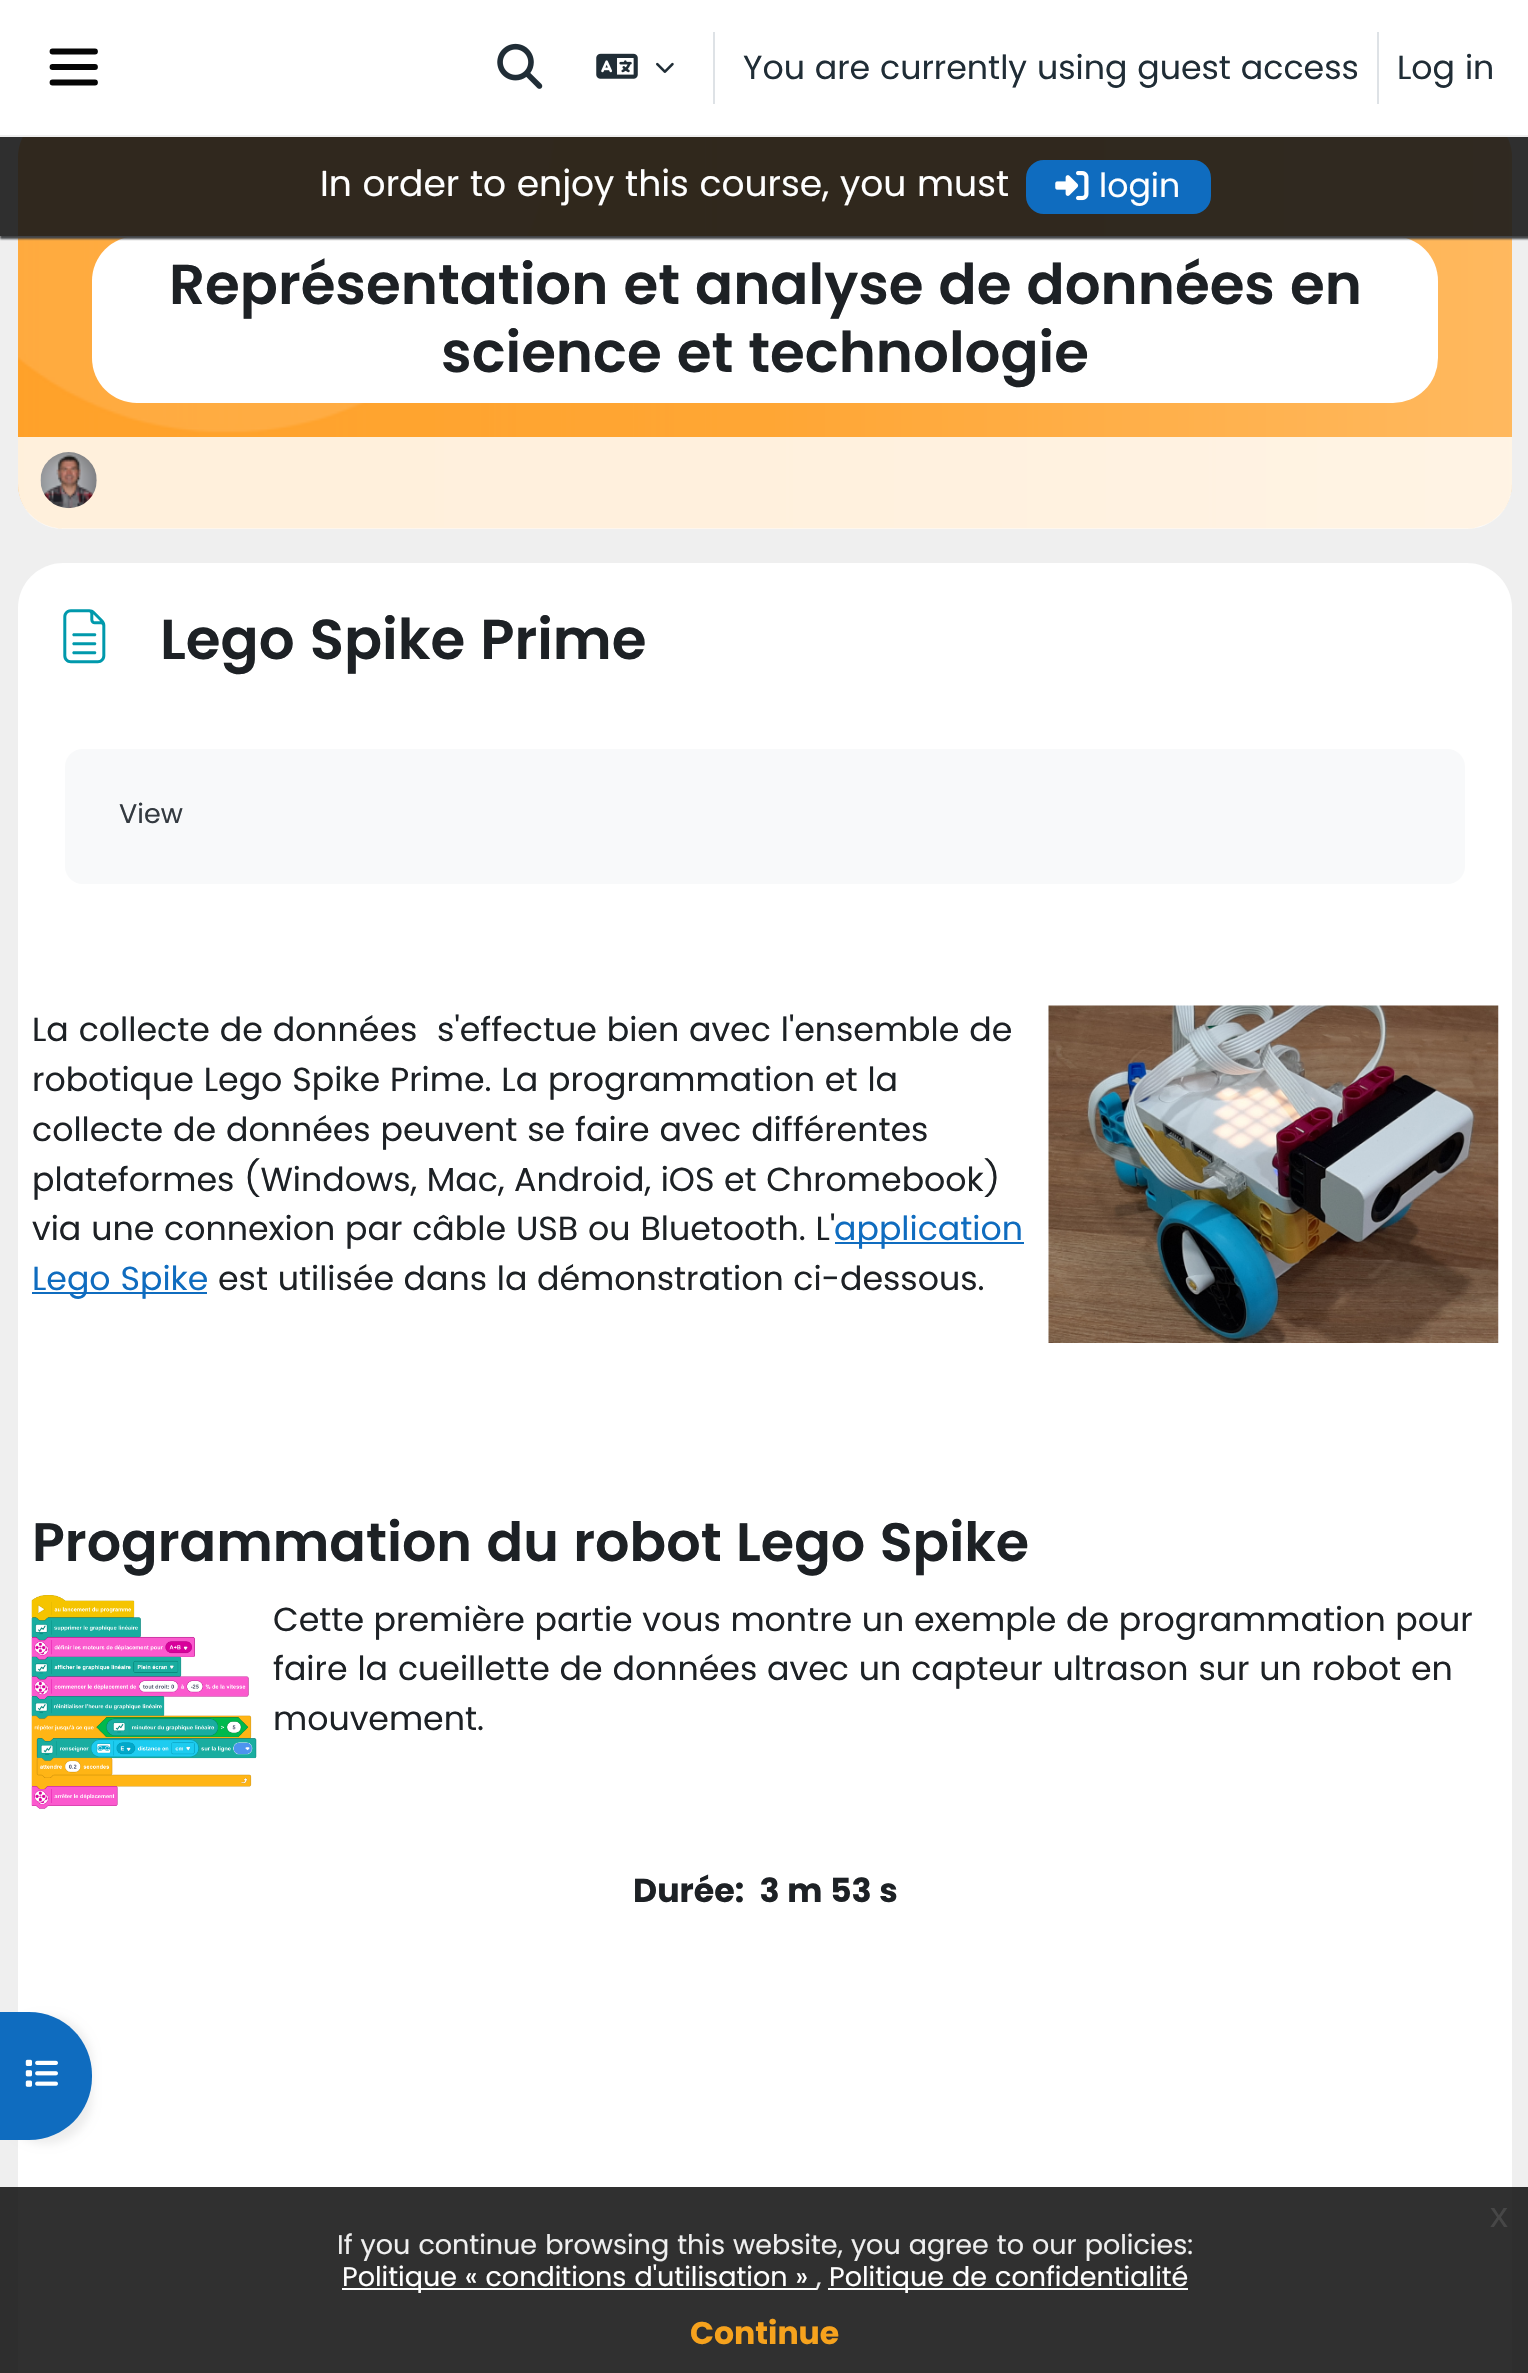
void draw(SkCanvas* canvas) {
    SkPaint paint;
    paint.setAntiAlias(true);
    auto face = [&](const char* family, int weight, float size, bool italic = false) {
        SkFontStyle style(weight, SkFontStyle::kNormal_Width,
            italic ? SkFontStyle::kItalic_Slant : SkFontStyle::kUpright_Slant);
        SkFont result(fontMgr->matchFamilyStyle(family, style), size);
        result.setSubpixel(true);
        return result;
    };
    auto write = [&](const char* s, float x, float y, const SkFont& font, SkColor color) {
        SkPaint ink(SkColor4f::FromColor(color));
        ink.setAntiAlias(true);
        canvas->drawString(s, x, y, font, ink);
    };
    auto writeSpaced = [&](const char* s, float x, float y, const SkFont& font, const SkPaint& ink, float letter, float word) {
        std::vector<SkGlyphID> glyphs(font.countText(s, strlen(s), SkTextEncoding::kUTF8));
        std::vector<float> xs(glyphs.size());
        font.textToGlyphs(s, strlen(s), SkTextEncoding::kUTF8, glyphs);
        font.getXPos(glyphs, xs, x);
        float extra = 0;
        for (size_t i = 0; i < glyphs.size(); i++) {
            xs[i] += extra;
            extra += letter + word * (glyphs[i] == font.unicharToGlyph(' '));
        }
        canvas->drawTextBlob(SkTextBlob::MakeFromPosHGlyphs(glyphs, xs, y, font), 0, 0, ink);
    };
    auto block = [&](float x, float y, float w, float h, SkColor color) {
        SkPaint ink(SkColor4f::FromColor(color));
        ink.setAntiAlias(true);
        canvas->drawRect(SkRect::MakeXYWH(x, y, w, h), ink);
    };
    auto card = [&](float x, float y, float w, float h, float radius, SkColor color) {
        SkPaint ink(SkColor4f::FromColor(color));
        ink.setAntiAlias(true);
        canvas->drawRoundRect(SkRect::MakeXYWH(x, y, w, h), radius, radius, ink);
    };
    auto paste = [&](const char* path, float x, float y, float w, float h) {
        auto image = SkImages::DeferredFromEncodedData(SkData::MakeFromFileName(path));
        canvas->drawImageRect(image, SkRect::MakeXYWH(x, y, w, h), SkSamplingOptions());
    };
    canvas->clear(SkColorSetRGB(239, 239, 239));
    block(0, 2187, 1528, 186, SkColorSetRGB(46, 46, 46));
    paste("pic5.png", 17, 137, 1495, 392);
    card(92, 236, 1346, 167, 45, SK_ColorWHITE);
    canvas->save();
    canvas->clipRect(SkRect::MakeXYWH(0, 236, 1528, 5));
    paint.setColor(SkColorSetRGB(65, 67, 70));
    paint.setMaskFilter(SkMaskFilter::MakeBlur(kNormal_SkBlurStyle, 1));
    canvas->drawRect(SkRect::MakeXYWH(0, 137, 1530, 102), paint);
    paint.setMaskFilter(nullptr);
    canvas->restore();
    block(0, 0, 1528, 135, SK_ColorWHITE);
    paint.setStyle(SkPaint::kStroke_Style);
    paint.setStrokeWidth(5.8f);
    paint.setStrokeCap(SkPaint::kRound_Cap);
    paint.setColor(SkColorSetRGB(5, 5, 5));
    canvas->drawPath(SkPathBuilder().moveTo(52.5f, 51.5f).lineTo(95, 51.5f).moveTo(52.5f, 67).lineTo(95, 67).moveTo(52.5f, 82.5f).lineTo(95, 82.5f).detach(), paint);
    paste("pic1.png", 497, 43, 46, 46);
    paste("pic2.png", 596, 53, 42, 26);
    paste("pic3.png", 656, 62, 18, 11);
    block(713, 32, 2, 72, SkColorSetRGB(222, 226, 230));
    auto kFont1 = face("Poppins", 400, 33.2f);
    write("You are currently using guest access", 743, 79, kFont1, SkColorSetRGB(32, 45, 54));
    block(1377, 32, 2, 72, SkColorSetRGB(222, 226, 230));
    write("Log in", 1397, 79, kFont1, SkColorSetRGB(32, 45, 54));
    block(0, 137, 1528, 99, SkColorSetARGB(230, 25, 25, 25));
    auto kFont2 = face("Poppins", 400, 36);
    write("In order to enjoy this course, you must", 320, 196, kFont2, SK_ColorWHITE);
    paint.setStyle(SkPaint::kFill_Style);
    paint.setColor(SkColorSetRGB(15, 108, 191));
    canvas->drawRoundRect(SkRect::MakeXYWH(1027, 161, 183, 52), 17, 17, paint);
    paint.setStyle(SkPaint::kStroke_Style);
    paint.setStrokeWidth(2);
    paint.setStrokeCap(SkPaint::kButt_Cap);
    canvas->drawRoundRect(SkRect::MakeXYWH(1027, 161, 183, 52), 17, 17, paint);
    paste("pic4.png", 1055, 171, 34, 30);
    write("login", 1099, 197, kFont1, SK_ColorWHITE);
    auto kFont3 = face("Poppins", 600, 56.25f);
    write("Représentation et analyse de données en", 169, 304, kFont3, SkColorSetRGB(29, 33, 37));
    write("science et technologie", 441, 372, kFont3, SkColorSetRGB(29, 33, 37));
    paint.setStyle(SkPaint::kFill_Style);
    paint.setColor(SkColorSetARGB(212, 255, 255, 255));
    canvas->drawPath(SkPathBuilder().moveTo(18, 437).lineTo(1512, 437).lineTo(1512, 484).cubicTo(1512, 509, 1492, 529, 1467, 529).lineTo(63, 529).cubicTo(38, 529, 18, 509, 18, 484).close().detach(), paint);
    paste("pic6.png", 40, 452, 57, 57);
    card(18, 563, 1494, 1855, 45, SK_ColorWHITE);
    block(18, 2187, 1494, 186, SkColorSetRGB(48, 48, 48));
    paste("pic7.png", 63, 609, 43, 55);
    write("Lego Spike Prime", 160, 659, kFont3, SkColorSetRGB(29, 33, 37));
    card(65, 749, 1400, 135, 18, SkColorSetRGB(248, 249, 250));
    auto kFont4 = face("Poppins", 400, 27);
    write("View", 119, 823, kFont4, SkColorSetRGB(52, 58, 64));
    write("La collecte de données  s'effectue bien avec l'ensemble de", 32, 1041, kFont1, SkColorSetRGB(29, 33, 37));
    paste("pic8.png", 1048, 1005, 451, 338);
    write("robotique Lego Spike Prime. La programmation et la", 32, 1091, kFont1, SkColorSetRGB(29, 33, 37));
    write("collecte de données peuvent se faire avec différentes", 32, 1141, kFont1, SkColorSetRGB(29, 33, 37));
    paint.setColor(SkColorSetRGB(29, 33, 37));
    writeSpaced("plateformes (Windows, Mac, Android, iOS et Chromebook)", 32, 1191, kFont1, paint, 0, -0.25f);
    write("via une connexion par câble USB ou Bluetooth. L'", 32, 1240, kFont1, SkColorSetRGB(29, 33, 37));
    block(835, 1242, 189, 2, SkColorSetRGB(15, 108, 191));
    write("application", 834, 1240, kFont1, SkColorSetRGB(15, 108, 191));
    block(32, 1292, 175, 2, SkColorSetRGB(15, 108, 191));
    write("Lego Spike", 32, 1290, kFont1, SkColorSetRGB(15, 108, 191));
    writeSpaced("est utilisée dans la démonstration ci-dessous.", 218, 1290, kFont1, paint, 0, -0.25f);
    auto kFont5 = face("Poppins", 600, 54);
    write("Programmation du robot Lego Spike", 32, 1561, kFont5, SkColorSetRGB(29, 33, 37));
    paste("pic9.png", 31, 1595, 226, 214);
    writeSpaced("Cette première partie vous montre un exemple de programmation pour", 273, 1631, kFont1, paint, 0, -0.25f);
    write("faire la cueillette de données avec un capteur ultrason sur un robot en", 273, 1680, kFont1, SkColorSetRGB(29, 33, 37));
    write("mouvement.", 273, 1730, kFont1, SkColorSetRGB(29, 33, 37));
    auto kFont6 = face("Poppins", 700, 33.2f);
    write("Durée:  3 m 53 s", 633, 1902, kFont6, SkColorSetRGB(29, 33, 37));
    paint.setColor(SkColorSetARGB(18, 0, 0, 0));
    paint.setMaskFilter(SkMaskFilter::MakeBlur(kNormal_SkBlurStyle, 4.5f));
    canvas->drawRoundRect(SkRect::MakeXYWH(0, 2016, 92, 128), 63, 63, paint);
    paint.setMaskFilter(nullptr);
    paint.setColor(SkColorSetRGB(15, 108, 191));
    canvas->drawPath(SkPathBuilder().moveTo(0, 2012).lineTo(29, 2012).cubicTo(64, 2012, 92, 2040, 92, 2075).lineTo(92, 2077).cubicTo(92, 2112, 64, 2140, 29, 2140).lineTo(0, 2140).close().detach(), paint);
    paste("pic10.png", 25, 2059, 33, 28);
    auto kFont7 = face("Liberation Sans", 400, 36);
    write("x", 1490, 2227, kFont7, SkColorSetRGB(71, 71, 71));
    write("If you continue browsing this website, you agree to our policies:", 337, 2254, kFont4, SkColorSetRGB(239, 239, 239));
    block(342, 2288, 475, 2, SK_ColorWHITE);
    write("Politique « conditions d'utilisation »", 342, 2286, kFont4, SK_ColorWHITE);
    write(",", 816, 2286, kFont4, SkColorSetRGB(239, 239, 239));
    block(828, 2288, 360, 2, SK_ColorWHITE);
    write("Politique de confidentialité", 829, 2286, kFont4, SK_ColorWHITE);
    auto kFont8 = face("Poppins", 700, 31.5f);
    write("Continue", 690, 2344, kFont8, SkColorSetRGB(246, 162, 29));
}
